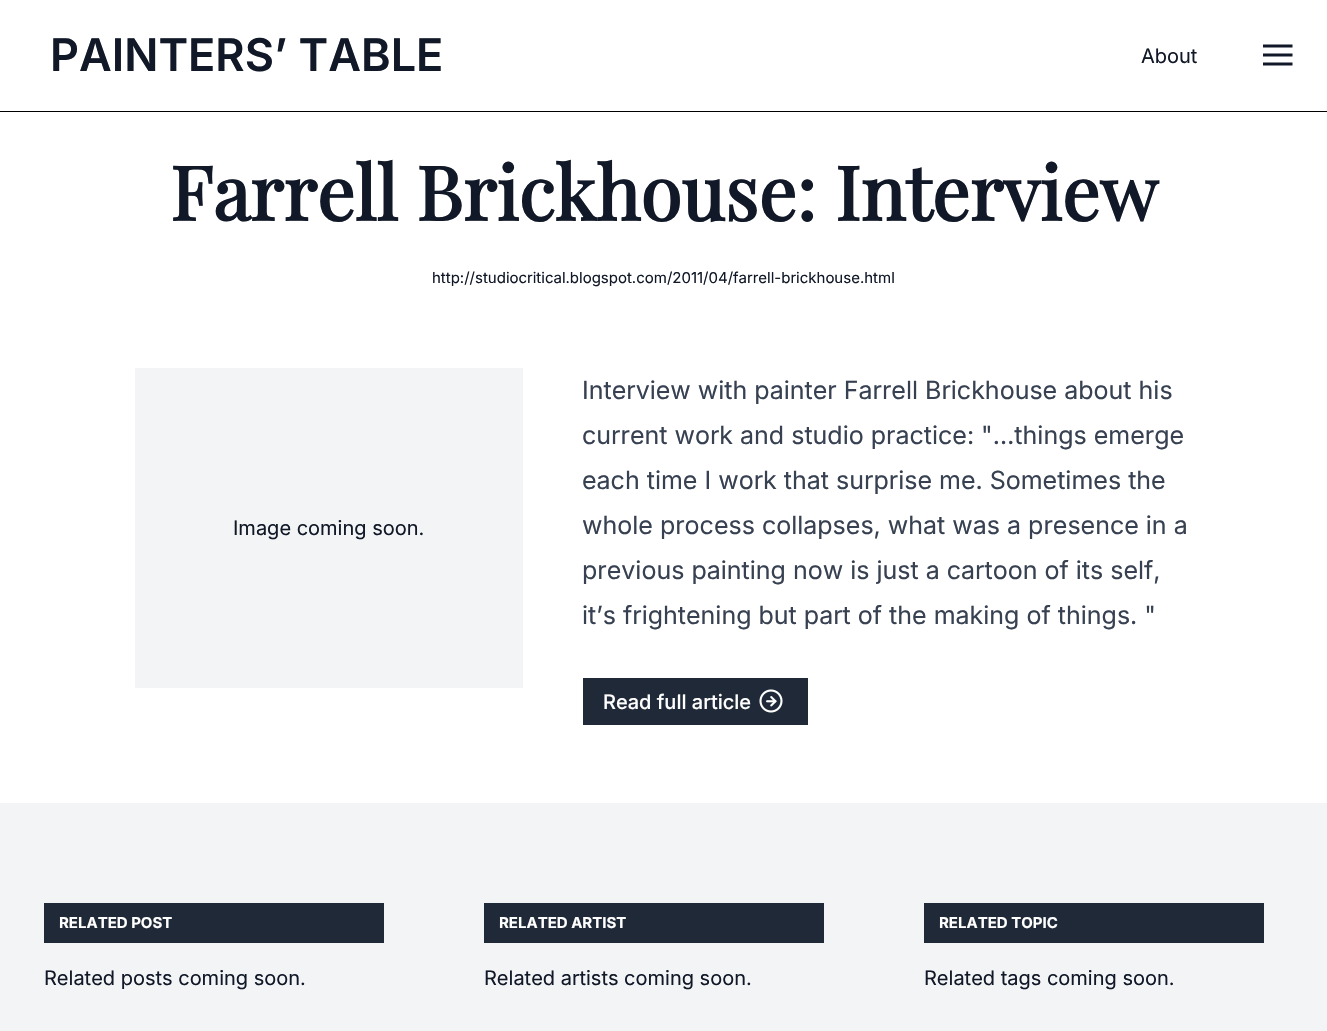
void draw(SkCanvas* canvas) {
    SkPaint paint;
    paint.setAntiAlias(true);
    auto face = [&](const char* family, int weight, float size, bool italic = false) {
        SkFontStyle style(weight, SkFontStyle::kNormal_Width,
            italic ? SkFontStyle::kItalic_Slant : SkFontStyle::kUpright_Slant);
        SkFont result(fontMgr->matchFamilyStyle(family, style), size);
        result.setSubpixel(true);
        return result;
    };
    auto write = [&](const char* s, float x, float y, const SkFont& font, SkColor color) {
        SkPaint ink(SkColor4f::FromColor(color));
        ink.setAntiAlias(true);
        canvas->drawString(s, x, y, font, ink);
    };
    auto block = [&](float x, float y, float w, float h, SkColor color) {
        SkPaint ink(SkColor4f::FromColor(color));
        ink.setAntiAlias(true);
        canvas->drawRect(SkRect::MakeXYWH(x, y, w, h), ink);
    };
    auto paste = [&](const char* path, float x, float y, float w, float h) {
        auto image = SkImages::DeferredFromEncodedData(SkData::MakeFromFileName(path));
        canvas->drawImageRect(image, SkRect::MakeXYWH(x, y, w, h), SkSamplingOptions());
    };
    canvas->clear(SK_ColorWHITE);
    block(0, 111, 1327, 1, SK_ColorBLACK);
    auto kFont1 = face("Inter", 600, 45);
    write("PAINTERS’ TABLE", 50, 71, kFont1, SkColorSetRGB(17, 24, 39));
    auto kFont2 = face("Inter", 400, 20);
    write("About", 1141, 63, kFont2, SkColorSetRGB(17, 24, 39));
    paste("pic1.png", 1263, 44, 30, 22);
    auto kFont3 = face("Playfair Display", 700, 75);
    write("Farrell Brickhouse: Interview", 170, 221, kFont3, SkColorSetRGB(17, 24, 39));
    auto kFont4 = face("Inter", 400, 15);
    write("http://studiocritical.blogspot.com/2011/04/farrell-brickhouse.html", 432, 283, kFont4, SkColorSetRGB(17, 24, 39));
    block(135, 368, 388, 320, SkColorSetRGB(243, 244, 246));
    write("Image coming soon.", 233, 535, kFont2, SkColorSetRGB(17, 24, 39));
    auto kFont5 = face("Inter", 400, 25);
    write("Interview with painter Farrell Brickhouse about his", 582, 399, kFont5, SkColorSetRGB(55, 65, 81));
    write("current work and studio practice: \"…things emerge", 582, 444, kFont5, SkColorSetRGB(55, 65, 81));
    write("each time I work that surprise me. Sometimes the", 582, 489, kFont5, SkColorSetRGB(55, 65, 81));
    write("whole process collapses, what was a presence in a", 582, 534, kFont5, SkColorSetRGB(55, 65, 81));
    write("previous painting now is just a cartoon of its self,", 582, 579, kFont5, SkColorSetRGB(55, 65, 81));
    write("it’s frightening but part of the making of things. \"", 582, 624, kFont5, SkColorSetRGB(55, 65, 81));
    block(583, 678, 225, 47, SkColorSetRGB(31, 41, 55));
    auto kFont6 = face("Inter", 500, 20);
    write("Read full article", 603, 709, kFont6, SK_ColorWHITE);
    paste("pic2.png", 759, 689, 24, 24);
    block(0, 803, 1327, 228, SkColorSetRGB(243, 244, 246));
    block(44, 903, 340, 40, SkColorSetRGB(31, 41, 55));
    auto kFont7 = face("Inter", 700, 15);
    write("RELATED POST", 59, 928, kFont7, SK_ColorWHITE);
    write("Related posts coming soon.", 44, 985, kFont2, SkColorSetRGB(17, 24, 39));
    block(484, 903, 340, 40, SkColorSetRGB(31, 41, 55));
    write("RELATED ARTIST", 499, 928, kFont7, SK_ColorWHITE);
    write("Related artists coming soon.", 484, 985, kFont2, SkColorSetRGB(17, 24, 39));
    block(924, 903, 340, 40, SkColorSetRGB(31, 41, 55));
    write("RELATED TOPIC", 939, 928, kFont7, SK_ColorWHITE);
    write("Related tags coming soon.", 924, 985, kFont2, SkColorSetRGB(17, 24, 39));
}
